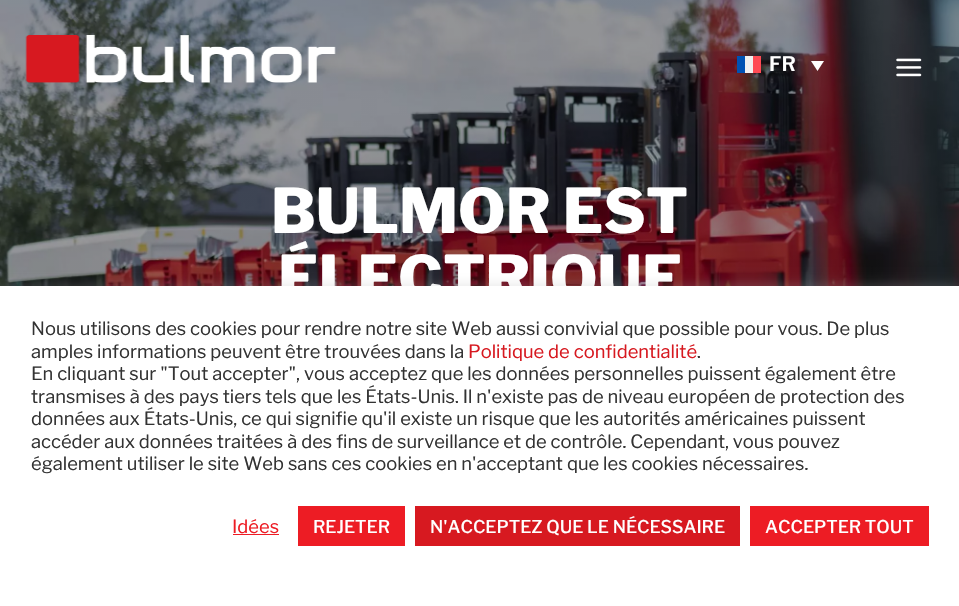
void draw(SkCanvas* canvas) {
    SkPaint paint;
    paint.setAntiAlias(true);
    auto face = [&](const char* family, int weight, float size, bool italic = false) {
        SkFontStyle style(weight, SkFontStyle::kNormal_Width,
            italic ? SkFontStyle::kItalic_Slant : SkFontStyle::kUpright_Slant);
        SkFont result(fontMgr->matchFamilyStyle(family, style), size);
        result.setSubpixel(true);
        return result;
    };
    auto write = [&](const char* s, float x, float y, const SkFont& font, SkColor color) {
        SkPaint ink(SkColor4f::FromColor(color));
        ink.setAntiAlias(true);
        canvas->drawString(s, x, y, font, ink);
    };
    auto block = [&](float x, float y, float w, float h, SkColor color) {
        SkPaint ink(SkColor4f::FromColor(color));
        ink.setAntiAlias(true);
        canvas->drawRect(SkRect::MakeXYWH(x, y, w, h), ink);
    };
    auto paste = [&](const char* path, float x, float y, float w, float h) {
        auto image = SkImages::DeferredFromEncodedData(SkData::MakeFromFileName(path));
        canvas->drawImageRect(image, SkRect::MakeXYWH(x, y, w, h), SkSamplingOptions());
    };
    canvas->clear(SK_ColorWHITE);
    paste("pic3.png", 0, 0, 959, 286);
    paste("pic1.png", 25, 35, 311, 48);
    block(737, 56, 8, 17, SkColorSetRGB(0, 82, 180));
    block(745, 56, 8, 17, SkColorSetRGB(240, 240, 240));
    block(753, 56, 8, 17, SkColorSetRGB(255, 75, 85));
    auto kFont1 = face("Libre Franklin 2", 100, 20);
    write("FR", 769, 71, kFont1, SK_ColorWHITE);
    paint.setColor(SK_ColorWHITE);
    canvas->drawPath(SkPathBuilder().moveTo(811, 61).lineTo(824, 61).lineTo(817.5f, 71).close().detach(), paint);
    paste("pic2.png", 896, 58, 26, 19);
    auto kFont2 = face("Libre Franklin", 100, 61.25f);
    write("BULMOR EST", 271, 233, kFont2, SK_ColorWHITE);
    write("ÉLECTRIQUE", 278, 300, kFont2, SK_ColorWHITE);
    paint.setColor(SkColorSetARGB(77, 172, 171, 171));
    paint.setMaskFilter(SkMaskFilter::MakeBlur(kNormal_SkBlurStyle, 6));
    canvas->drawRect(SkRect::MakeXYWH(0, 285, 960, 320), paint);
    paint.setMaskFilter(nullptr);
    block(0, 286, 959, 320, SK_ColorWHITE);
    auto kFont3 = face("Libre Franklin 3", 100, 18.35f);
    write("Nous utilisons des cookies pour rendre notre site Web aussi convivial que possible pour vous. De plus", 31, 335, kFont3, SkColorSetRGB(51, 51, 51));
    write("amples informations peuvent être trouvées dans la", 31, 358, kFont3, SkColorSetRGB(51, 51, 51));
    write("Politique de confidentialité", 468, 358, kFont3, SkColorSetRGB(215, 25, 32));
    write(".", 697, 358, kFont3, SkColorSetRGB(51, 51, 51));
    write("En cliquant sur \"Tout accepter\", vous acceptez que les données personnelles puissent également être", 31, 380, kFont3, SkColorSetRGB(51, 51, 51));
    write("transmises à des pays tiers tels que les États-Unis. Il n'existe pas de niveau européen de protection des", 31, 403, kFont3, SkColorSetRGB(51, 51, 51));
    write("données aux États-Unis, ce qui signifie qu'il existe un risque que les autorités américaines puissent", 31, 425, kFont3, SkColorSetRGB(51, 51, 51));
    write("accéder aux données traitées à des fins de surveillance et de contrôle. Cependant, vous pouvez", 31, 448, kFont3, SkColorSetRGB(51, 51, 51));
    write("également utiliser le site Web sans ces cookies en n'acceptant que les cookies nécessaires.", 31, 470, kFont3, SkColorSetRGB(51, 51, 51));
    write("Idées", 232, 533, kFont3, SkColorSetRGB(237, 28, 36));
    block(233, 534, 46, 1, SkColorSetRGB(237, 28, 36));
    block(298, 506, 107, 40, SkColorSetRGB(237, 28, 36));
    auto kFont4 = face("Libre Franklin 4", 100, 17.5f);
    write("REJETER", 313, 533, kFont4, SK_ColorWHITE);
    block(415, 506, 325, 40, SkColorSetRGB(215, 25, 32));
    write("N'ACCEPTEZ QUE LE NÉCESSAIRE", 430, 533, kFont4, SK_ColorWHITE);
    block(750, 506, 179, 40, SkColorSetRGB(237, 28, 36));
    write("ACCEPTER TOUT", 765, 533, kFont4, SK_ColorWHITE);
}
